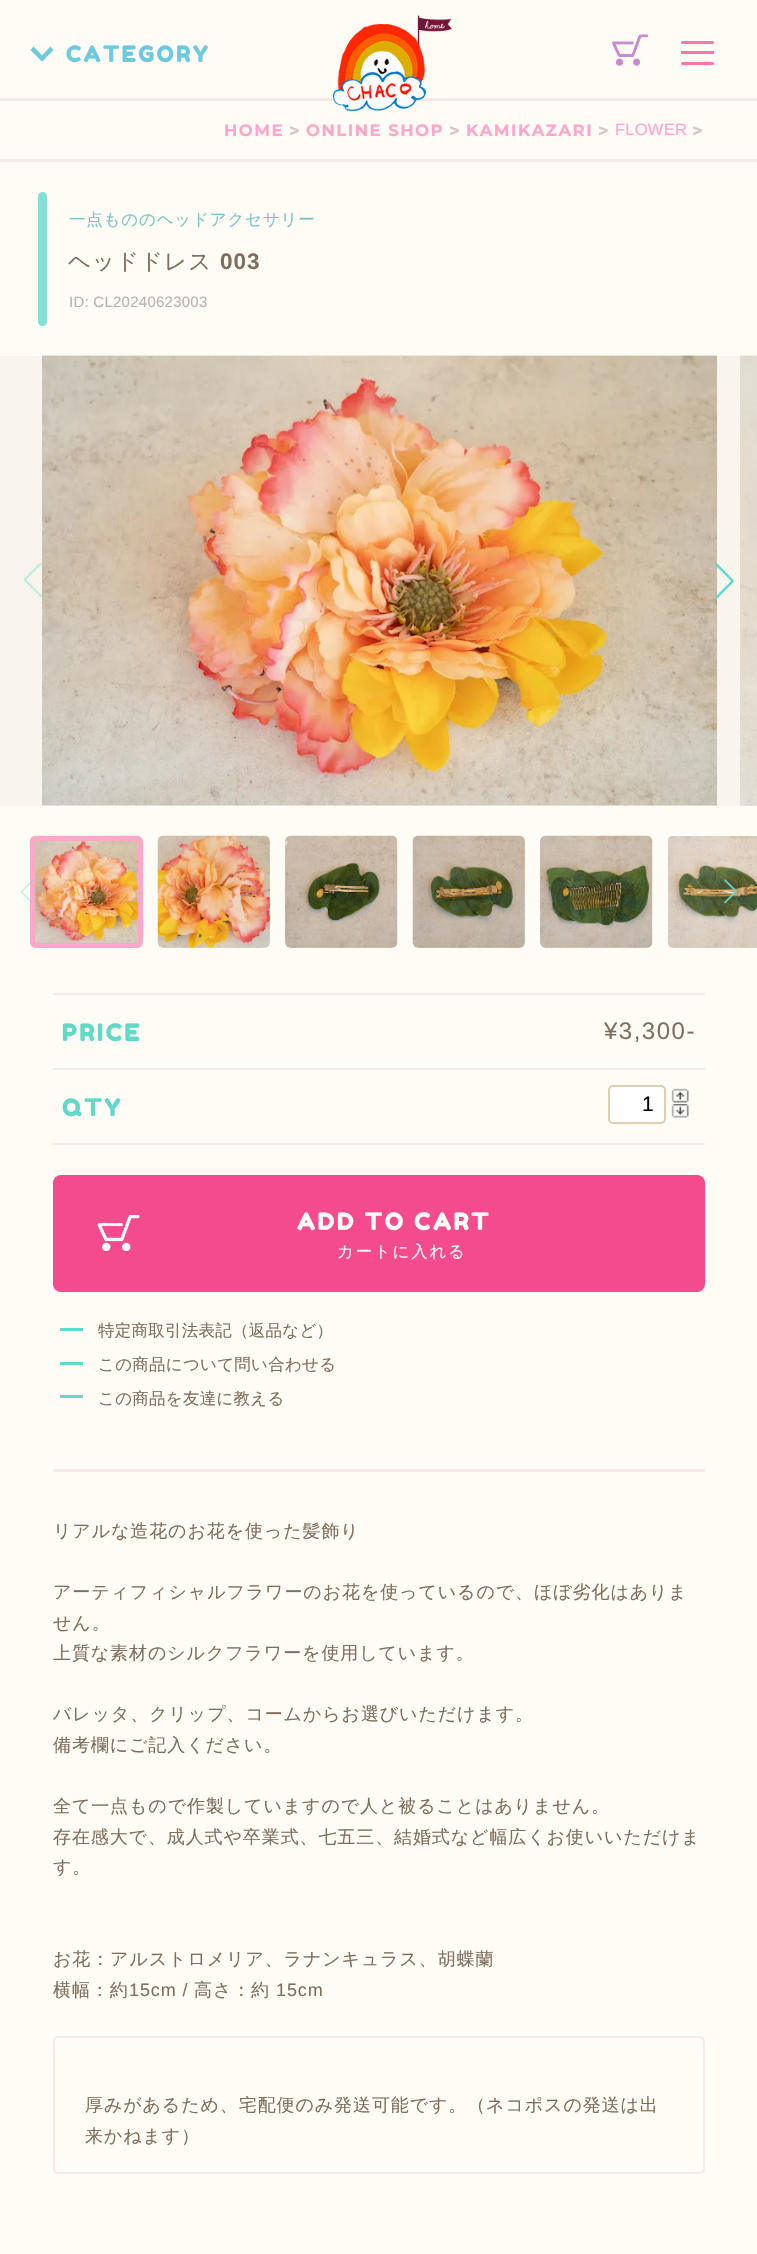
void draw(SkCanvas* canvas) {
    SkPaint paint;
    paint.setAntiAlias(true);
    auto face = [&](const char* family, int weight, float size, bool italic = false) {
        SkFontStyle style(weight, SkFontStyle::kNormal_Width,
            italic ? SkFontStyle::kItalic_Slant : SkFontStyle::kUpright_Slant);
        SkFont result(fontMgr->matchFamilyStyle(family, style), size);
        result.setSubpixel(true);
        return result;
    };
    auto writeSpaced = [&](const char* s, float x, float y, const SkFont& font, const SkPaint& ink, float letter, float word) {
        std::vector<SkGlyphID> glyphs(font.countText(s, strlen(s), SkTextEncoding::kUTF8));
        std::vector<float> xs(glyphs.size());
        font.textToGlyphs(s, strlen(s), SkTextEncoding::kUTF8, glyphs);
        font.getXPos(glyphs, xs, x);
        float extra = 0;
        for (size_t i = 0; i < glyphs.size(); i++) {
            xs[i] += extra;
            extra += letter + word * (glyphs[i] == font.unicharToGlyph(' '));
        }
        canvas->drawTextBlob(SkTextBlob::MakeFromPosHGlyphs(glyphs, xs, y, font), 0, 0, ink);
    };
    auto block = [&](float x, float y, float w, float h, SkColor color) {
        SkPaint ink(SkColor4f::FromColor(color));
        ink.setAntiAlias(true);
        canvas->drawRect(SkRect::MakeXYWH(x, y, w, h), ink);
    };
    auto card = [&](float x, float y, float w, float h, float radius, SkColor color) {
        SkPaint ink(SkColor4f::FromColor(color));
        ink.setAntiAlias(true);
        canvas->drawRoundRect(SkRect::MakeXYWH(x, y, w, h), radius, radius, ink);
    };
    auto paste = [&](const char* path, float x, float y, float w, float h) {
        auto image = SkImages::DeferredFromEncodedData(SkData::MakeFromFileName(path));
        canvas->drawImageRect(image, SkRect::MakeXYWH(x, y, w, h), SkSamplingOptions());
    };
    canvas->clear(SkColorSetRGB(255, 251, 245));
    paint.setColor(SkColorSetRGB(110, 201, 220));
    canvas->drawPath(SkPathBuilder().moveTo(39, 58.5f).lineTo(50.5f, 46.5f).lineTo(53.5f, 50).lineTo(42, 61.5f).close().detach(), paint);
    canvas->drawPath(SkPathBuilder().moveTo(30.5f, 50).lineTo(33.5f, 46.5f).lineTo(45, 58.5f).lineTo(42, 61.5f).close().detach(), paint);
    auto kFont1 = face("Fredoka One", 400, 22.5f);
    writeSpaced("CATEGORY", 66, 62, kFont1, paint, 2.25f, 0);
    paste("pic1.png", 612, 34, 36, 32);
    block(681, 51, 33, 3, SkColorSetRGB(249, 118, 171));
    card(681, 41, 33, 3, 1.5f, SkColorSetRGB(249, 118, 171));
    card(681, 62, 33, 3, 1.5f, SkColorSetRGB(249, 118, 171));
    paste("pic3.png", 417, 15, 35, 34);
    block(0, 98, 757, 3, SkColorSetRGB(248, 233, 233));
    paste("pic2.png", 333, 24, 93, 87);
    block(0, 159, 757, 3, SkColorSetRGB(248, 233, 233));
    auto kFont2 = face("Montserrat", 100, 16.5f);
    paint.setColor(SkColorSetRGB(255, 167, 203));
    writeSpaced("HOME", 224, 136, kFont2, paint, 1.5f, 0);
    auto kFont3 = face("Montserrat", 100, 18);
    paint.setColor(SkColorSetRGB(216, 196, 198));
    writeSpaced(">", 289, 137, kFont3, paint, 1.5f, 0);
    paint.setColor(SkColorSetRGB(255, 167, 203));
    writeSpaced("ONLINE SHOP", 306, 136, kFont2, paint, 1.5f, 0);
    paint.setColor(SkColorSetRGB(216, 196, 198));
    writeSpaced(">", 449, 137, kFont3, paint, 1.5f, 0);
    paint.setColor(SkColorSetRGB(255, 167, 203));
    writeSpaced("KAMIKAZARI", 466, 136, kFont2, paint, 1.5f, 0);
    paint.setColor(SkColorSetRGB(216, 196, 198));
    writeSpaced(">", 598, 137, kFont3, paint, 1.5f, 0);
    auto kFont4 = face("Liberation Sans", 400, 16.5f);
    paint.setColor(SkColorSetRGB(255, 167, 203));
    writeSpaced("FLOWER", 615, 135, kFont4, paint, 0.25f, 0);
    paint.setColor(SkColorSetRGB(216, 196, 198));
    writeSpaced(">", 692, 137, kFont3, paint, 1.5f, 0);
    card(38, 192, 9, 134, 4.5f, SkColorSetRGB(129, 225, 211));
    auto kFont5 = face("WenQuanYi Zen Hei", 500, 16.5f);
    paint.setColor(SkColorSetRGB(124, 196, 194));
    writeSpaced("一点もののヘッドアクセサリー", 69, 225, kFont5, paint, 0.8f, 0);
    auto kFont6 = face("WenQuanYi Zen Hei", 500, 22.5f);
    paint.setColor(SkColorSetRGB(126, 111, 94));
    writeSpaced("ヘッドドレス", 68, 269, kFont6, paint, 1, 0);
    auto kFont7 = face("Liberation Sans", 700, 22.5f);
    writeSpaced("003", 220, 269, kFont7, paint, 1, 0);
    auto kFont8 = face("Liberation Sans", 400, 15);
    paint.setColor(SkColorSetRGB(187, 175, 175));
    writeSpaced("ID: CL20240623003", 69, 307, kFont8, paint, 0.25f, 0);
    block(0, 356, 757, 450, SkColorSetRGB(249, 245, 237));
    paste("pic5.png", 42, 355, 675, 451);
    paste("pic4.png", 23, 563, 20, 35);
    paste("pic6.png", 740, 355, 17, 451);
    paste("pic7.png", 715, 563, 19, 36);
    paste("pic8.png", 30, 835, 113, 113);
    paint.setStyle(SkPaint::kStroke_Style);
    paint.setStrokeWidth(5);
    paint.setColor(SkColorSetRGB(255, 167, 203));
    canvas->drawRoundRect(SkRect::MakeXYWH(32.5f, 838.5f, 108, 107), 3.5f, 3.5f, paint);
    paste("pic9.png", 157, 835, 113, 113);
    paste("pic10.png", 285, 835, 113, 113);
    paste("pic11.png", 412, 835, 113, 113);
    paste("pic12.png", 540, 835, 113, 113);
    paste("pic13.png", 668, 836, 89, 112);
    paste("pic14.png", 20, 880, 14, 23);
    paste("pic15.png", 724, 879, 13, 24);
    block(53, 1143, 652, 2, SkColorSetRGB(248, 233, 233));
    block(53, 993, 652, 2, SkColorSetRGB(248, 233, 233));
    auto kFont9 = face("Fredoka One", 400, 24);
    paint.setStyle(SkPaint::kFill_Style);
    paint.setColor(SkColorSetRGB(98, 216, 199));
    writeSpaced("PRICE", 62, 1041, kFont9, paint, 2.4f, 0);
    auto kFont10 = face("Liberation Sans", 400, 24);
    paint.setColor(SkColorSetRGB(126, 111, 94));
    writeSpaced("¥3,300-", 604, 1039, kFont10, paint, 1.5f, 0);
    block(53, 1068, 652, 2, SkColorSetRGB(248, 233, 233));
    paint.setColor(SkColorSetRGB(98, 216, 199));
    writeSpaced("QTY", 62, 1116, kFont9, paint, 2.4f, 0);
    paint.setColor(SK_ColorWHITE);
    canvas->drawRoundRect(SkRect::MakeXYWH(609, 1086, 56, 37), 4, 4, paint);
    paint.setStyle(SkPaint::kStroke_Style);
    paint.setStrokeWidth(2);
    paint.setColor(SkColorSetRGB(225, 205, 178));
    canvas->drawRoundRect(SkRect::MakeXYWH(609, 1086, 56, 37), 4, 4, paint);
    auto kFont11 = face("Liberation Sans", 400, 21);
    paint.setStyle(SkPaint::kFill_Style);
    paint.setColor(SK_ColorBLACK);
    writeSpaced("1", 642, 1111, kFont11, paint, 1.5f, 0);
    paste("pic16.png", 671, 1088, 18, 15);
    paste("pic17.png", 671, 1104, 18, 14);
    card(53, 1175, 652, 117, 8, SkColorSetRGB(243, 75, 142));
    paste("pic18.png", 97, 1215, 43, 36);
    paint.setColor(SkColorSetRGB(255, 251, 245));
    writeSpaced("ADD TO CART", 297, 1230, kFont9, paint, 2.4f, 0);
    writeSpaced("カートに入れる", 337, 1257, kFont5, paint, 1.75f, 0);
    block(60, 1328, 23, 3, SkColorSetRGB(98, 218, 203));
    paint.setColor(SkColorSetRGB(126, 111, 94));
    writeSpaced("特定商取引法表記（返品など）", 98, 1336, kFont5, paint, 0.25f, 0);
    block(60, 1362, 23, 3, SkColorSetRGB(98, 218, 203));
    writeSpaced("この商品について問い合わせる", 98, 1370, kFont5, paint, 0.25f, 0);
    block(60, 1395, 23, 3, SkColorSetRGB(98, 218, 203));
    writeSpaced("この商品を友達に教える", 98, 1404, kFont5, paint, 0.25f, 0);
    block(53, 1469, 652, 3, SkColorSetRGB(248, 233, 233));
    auto kFont12 = face("WenQuanYi Zen Hei", 500, 18);
    writeSpaced("リアルな造花のお花を使った髪飾り", 53, 1537, kFont12, paint, 0.9f, 0);
    writeSpaced("アーティフィシャルフラワーのお花を使っているので、ほぼ劣化はありま", 53, 1598, kFont12, paint, 0.9f, 0);
    writeSpaced("せん。", 53, 1629, kFont12, paint, 0.9f, 0);
    writeSpaced("上質な素材のシルクフラワーを使用しています。", 53, 1659, kFont12, paint, 0.9f, 0);
    writeSpaced("バレッタ、クリップ、コームからお選びいただけます。", 53, 1720, kFont12, paint, 0.9f, 0);
    writeSpaced("備考欄にご記入ください。", 53, 1751, kFont12, paint, 0.9f, 0);
    writeSpaced("全て一点もので作製していますので人と被ることはありません。", 53, 1812, kFont12, paint, 0.9f, 0);
    writeSpaced("存在感大で、成人式や卒業式、七五三、結婚式など幅広くお使いいただけま", 53, 1843, kFont12, paint, 0.9f, 0);
    writeSpaced("す。", 53, 1873, kFont12, paint, 0.9f, 0);
    writeSpaced("お花：アルストロメリア、ラナンキュラス、胡蝶蘭", 53, 1965, kFont12, paint, 0.9f, 0);
    writeSpaced("横幅：約", 53, 1996, kFont12, paint, 0.9f, 0);
    auto kFont13 = face("Liberation Sans", 400, 18);
    writeSpaced("15cm /", 129, 1996, kFont13, paint, 0.9f, 0);
    writeSpaced("高さ：約", 194, 1996, kFont12, paint, 0.9f, 0);
    writeSpaced("15cm", 276, 1996, kFont13, paint, 0.9f, 0);
    paint.setStyle(SkPaint::kStroke_Style);
    paint.setColor(SkColorSetRGB(248, 233, 233));
    canvas->drawRoundRect(SkRect::MakeXYWH(54, 2037, 650, 136), 4, 4, paint);
    paint.setStyle(SkPaint::kFill_Style);
    paint.setColor(SkColorSetRGB(126, 111, 94));
    writeSpaced("厚みがあるため、宅配便のみ発送可能です。（ネコポスの発送は出", 85, 2111, kFont12, paint, 0.9f, 0);
    writeSpaced("来かねます）", 85, 2142, kFont12, paint, 0.9f, 0);
}
